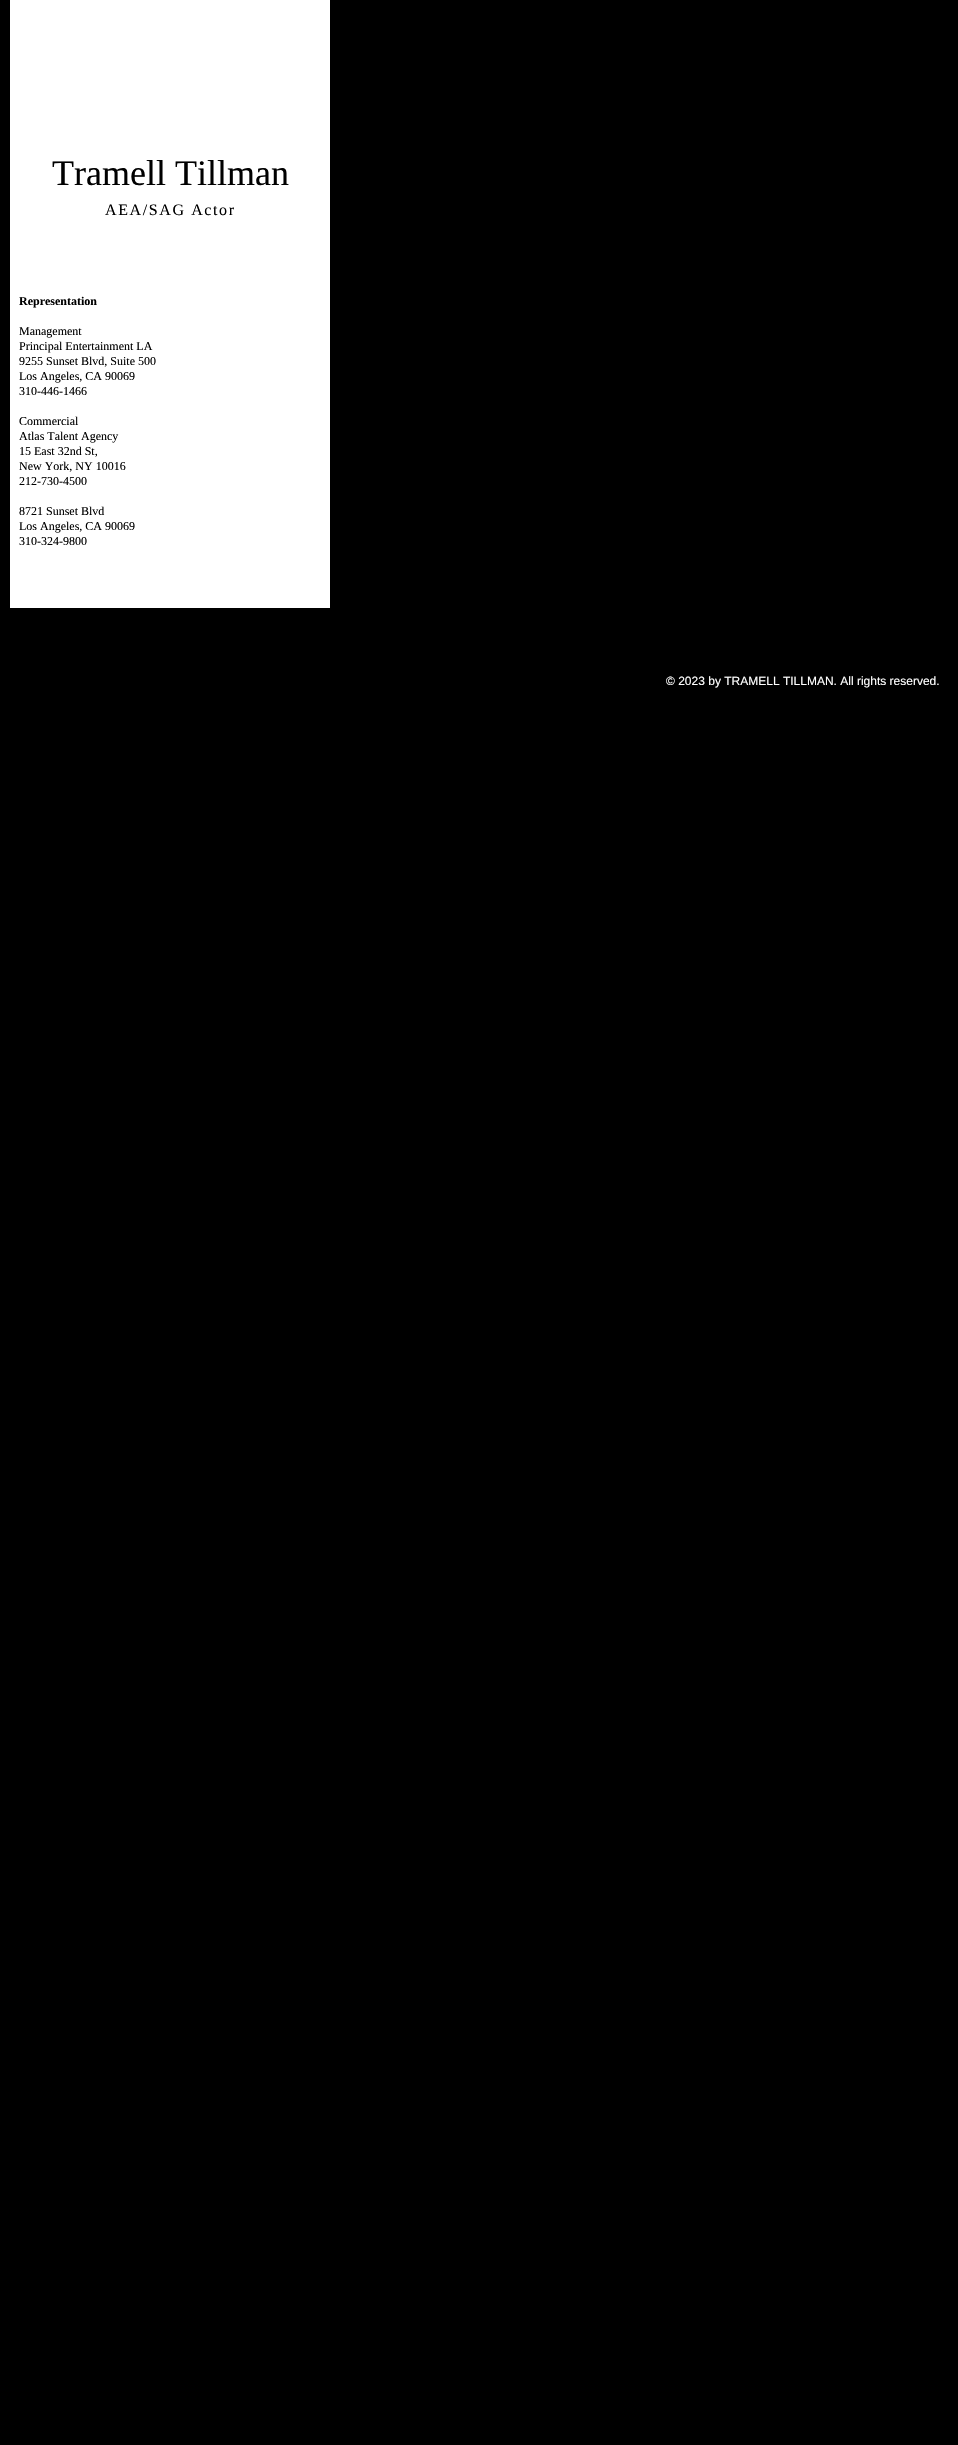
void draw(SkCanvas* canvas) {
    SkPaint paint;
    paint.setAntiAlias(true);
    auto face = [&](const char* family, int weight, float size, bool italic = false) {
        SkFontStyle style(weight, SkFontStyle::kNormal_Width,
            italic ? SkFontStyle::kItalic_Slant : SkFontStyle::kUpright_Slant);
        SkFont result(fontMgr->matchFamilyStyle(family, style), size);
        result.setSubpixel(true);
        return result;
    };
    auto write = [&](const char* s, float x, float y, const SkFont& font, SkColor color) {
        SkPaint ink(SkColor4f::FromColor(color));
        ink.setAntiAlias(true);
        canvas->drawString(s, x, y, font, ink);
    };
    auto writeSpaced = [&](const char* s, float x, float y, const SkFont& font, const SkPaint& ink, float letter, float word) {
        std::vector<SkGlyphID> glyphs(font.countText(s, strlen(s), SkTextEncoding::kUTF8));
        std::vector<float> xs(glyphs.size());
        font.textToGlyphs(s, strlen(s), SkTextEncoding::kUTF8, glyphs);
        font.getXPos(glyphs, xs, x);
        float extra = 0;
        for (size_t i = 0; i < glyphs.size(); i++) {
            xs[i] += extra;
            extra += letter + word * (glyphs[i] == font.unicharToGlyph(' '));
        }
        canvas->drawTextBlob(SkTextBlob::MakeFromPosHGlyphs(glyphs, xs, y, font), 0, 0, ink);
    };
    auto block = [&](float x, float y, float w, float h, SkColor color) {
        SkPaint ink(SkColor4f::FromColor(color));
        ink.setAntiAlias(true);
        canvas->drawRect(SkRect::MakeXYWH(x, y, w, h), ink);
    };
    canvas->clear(SK_ColorBLACK);
    block(10, 0, 320, 608, SK_ColorWHITE);
    auto kFont1 = face("Liberation Serif", 400, 36);
    write("Tramell Tillman", 52, 185, kFont1, SK_ColorBLACK);
    auto kFont2 = face("Liberation Serif", 400, 16);
    paint.setColor(SK_ColorBLACK);
    writeSpaced("AEA/SAG Actor", 105, 215, kFont2, paint, 1.6f, 0);
    auto kFont3 = face("Liberation Serif", 700, 12);
    write("Representation", 19, 305, kFont3, SK_ColorBLACK);
    auto kFont4 = face("Liberation Serif", 400, 12);
    write("Management", 19, 335, kFont4, SK_ColorBLACK);
    write("Principal Entertainment LA", 19, 350, kFont4, SK_ColorBLACK);
    write("9255 Sunset Blvd, Suite 500", 19, 365, kFont4, SK_ColorBLACK);
    write("Los Angeles, CA 90069", 19, 380, kFont4, SK_ColorBLACK);
    write("310-446-1466", 19, 395, kFont4, SK_ColorBLACK);
    write("Commercial", 19, 425, kFont4, SK_ColorBLACK);
    write("Atlas Talent Agency", 19, 440, kFont4, SK_ColorBLACK);
    write("15 East 32nd St,", 19, 455, kFont4, SK_ColorBLACK);
    write("New York, NY 10016", 19, 470, kFont4, SK_ColorBLACK);
    write("212-730-4500", 19, 485, kFont4, SK_ColorBLACK);
    write("8721 Sunset Blvd", 19, 515, kFont4, SK_ColorBLACK);
    write("Los Angeles, CA 90069", 19, 530, kFont4, SK_ColorBLACK);
    write("310-324-9800", 19, 545, kFont4, SK_ColorBLACK);
    auto kFont5 = face("Liberation Sans", 400, 12);
    write("© 2023 by TRAMELL TILLMAN. All rights reserved.", 666, 685, kFont5, SK_ColorWHITE);
}
